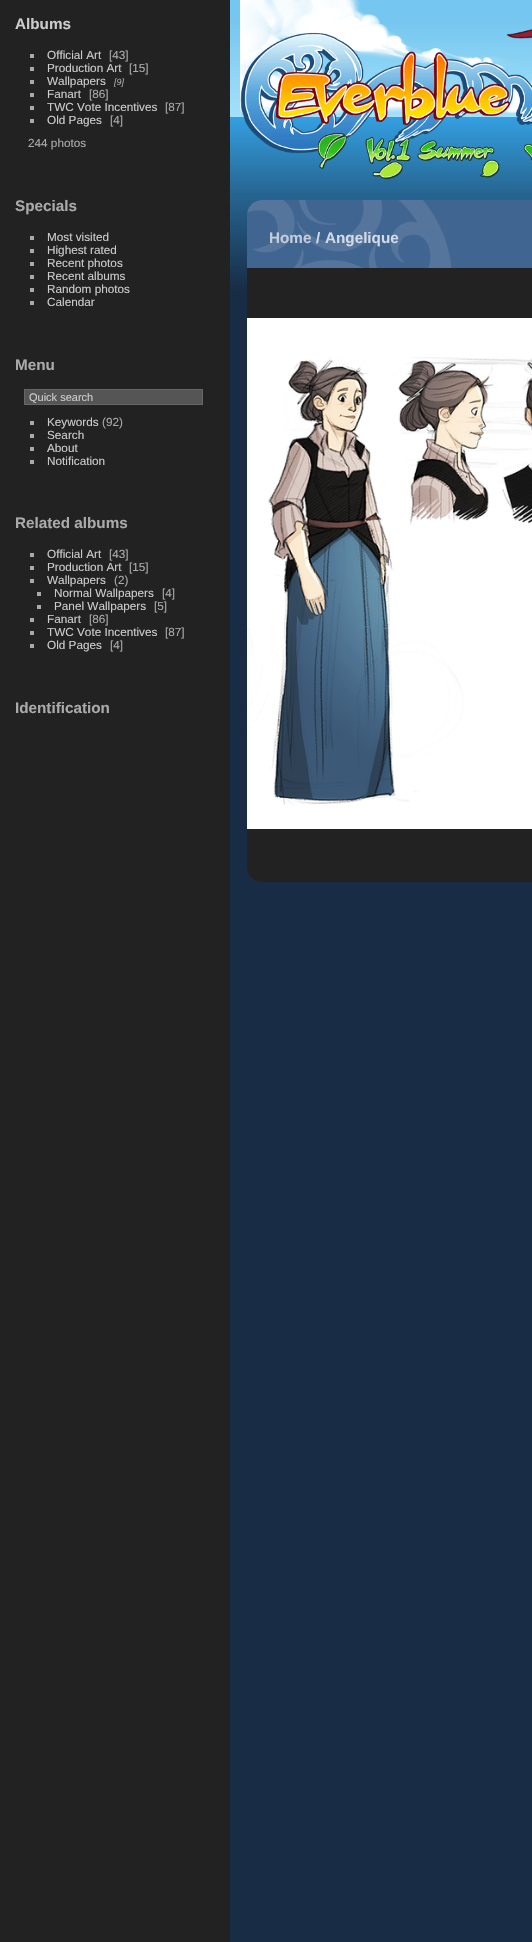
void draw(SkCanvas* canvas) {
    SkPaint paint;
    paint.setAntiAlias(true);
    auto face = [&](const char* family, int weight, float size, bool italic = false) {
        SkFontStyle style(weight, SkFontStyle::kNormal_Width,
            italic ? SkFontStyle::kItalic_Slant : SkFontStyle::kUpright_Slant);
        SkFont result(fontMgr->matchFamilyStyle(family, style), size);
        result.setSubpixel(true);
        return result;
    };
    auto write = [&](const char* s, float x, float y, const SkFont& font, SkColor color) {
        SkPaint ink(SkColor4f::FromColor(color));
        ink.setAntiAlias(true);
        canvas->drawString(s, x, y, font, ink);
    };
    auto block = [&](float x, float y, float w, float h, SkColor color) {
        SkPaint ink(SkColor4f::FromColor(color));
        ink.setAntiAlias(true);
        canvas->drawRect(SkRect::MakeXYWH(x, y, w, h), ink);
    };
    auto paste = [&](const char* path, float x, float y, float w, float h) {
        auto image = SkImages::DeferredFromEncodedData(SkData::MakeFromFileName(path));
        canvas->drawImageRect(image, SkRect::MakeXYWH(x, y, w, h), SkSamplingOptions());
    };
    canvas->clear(SK_ColorWHITE);
    {
        const SkColor colors[] = {SkColorSetRGB(117, 198, 240), SkColorSetRGB(163, 225, 250), SkColorSetRGB(52, 160, 225), SkColorSetRGB(38, 101, 145), SkColorSetRGB(24, 44, 69)};
        const float stops[] = {0.01f, 0.06f, 0.06f, 0.1f, 0.15f};
        const SkPoint ends[] = {{376, 0}, {376, 1942}};
        paint.setShader(SkGradientShader::MakeLinear(ends, colors, stops, 5, SkTileMode::kClamp));
        paint.setAlpha(255);
    }
    canvas->drawRect(SkRect::MakeXYWH(230, 0, 302, 1942), paint);
    block(0, 0, 230, 1942, SkColorSetRGB(34, 34, 34));
    auto kFont1 = face("Liberation Sans", 700, 15.25f);
    write("Albums", 15, 29, kFont1, SkColorSetRGB(204, 204, 204));
    block(30, 54, 4, 4, SkColorSetRGB(170, 170, 170));
    auto kFont2 = face("Liberation Sans", 400, 11.75f);
    write("Official Art", 47, 59, kFont2, SkColorSetRGB(204, 204, 204));
    write("[43]", 109, 59, kFont2, SkColorSetRGB(170, 170, 170));
    block(30, 67, 4, 4, SkColorSetRGB(170, 170, 170));
    write("Production Art", 47, 72, kFont2, SkColorSetRGB(204, 204, 204));
    write("[15]", 129, 72, kFont2, SkColorSetRGB(170, 170, 170));
    block(30, 80, 4, 4, SkColorSetRGB(170, 170, 170));
    write("Wallpapers", 47, 85, kFont2, SkColorSetRGB(204, 204, 204));
    auto kFont3 = face("Liberation Sans", 400, 9, true);
    write("[9]", 114, 85, kFont3, SkColorSetRGB(170, 170, 170));
    block(30, 93, 4, 4, SkColorSetRGB(170, 170, 170));
    write("Fanart", 47, 98, kFont2, SkColorSetRGB(204, 204, 204));
    write("[86]", 89, 98, kFont2, SkColorSetRGB(170, 170, 170));
    block(30, 106, 4, 4, SkColorSetRGB(170, 170, 170));
    write("TWC Vote Incentives", 47, 111, kFont2, SkColorSetRGB(204, 204, 204));
    write("[87]", 165, 111, kFont2, SkColorSetRGB(170, 170, 170));
    block(30, 119, 4, 4, SkColorSetRGB(170, 170, 170));
    write("Old Pages", 47, 124, kFont2, SkColorSetRGB(204, 204, 204));
    write("[4]", 110, 124, kFont2, SkColorSetRGB(170, 170, 170));
    write("244 photos", 28, 147, kFont2, SkColorSetRGB(170, 170, 170));
    write("Specials", 15, 211, kFont1, SkColorSetRGB(170, 170, 170));
    block(30, 236, 4, 4, SkColorSetRGB(170, 170, 170));
    write("Most visited", 47, 241, kFont2, SkColorSetRGB(204, 204, 204));
    block(30, 249, 4, 4, SkColorSetRGB(170, 170, 170));
    write("Highest rated", 47, 254, kFont2, SkColorSetRGB(204, 204, 204));
    block(30, 262, 4, 4, SkColorSetRGB(170, 170, 170));
    write("Recent photos", 47, 267, kFont2, SkColorSetRGB(204, 204, 204));
    block(30, 275, 4, 4, SkColorSetRGB(170, 170, 170));
    write("Recent albums", 47, 280, kFont2, SkColorSetRGB(204, 204, 204));
    block(30, 288, 4, 4, SkColorSetRGB(170, 170, 170));
    write("Random photos", 47, 293, kFont2, SkColorSetRGB(204, 204, 204));
    block(30, 301, 4, 4, SkColorSetRGB(170, 170, 170));
    write("Calendar", 47, 306, kFont2, SkColorSetRGB(204, 204, 204));
    write("Menu", 15, 370, kFont1, SkColorSetRGB(170, 170, 170));
    paint.setShader(nullptr);
    paint.setColor(SkColorSetRGB(85, 85, 85));
    canvas->drawRect(SkRect::MakeXYWH(24.5f, 389.5f, 178, 15), paint);
    paint.setStyle(SkPaint::kStroke_Style);
    paint.setStrokeWidth(1);
    paint.setColor(SkColorSetRGB(102, 102, 102));
    canvas->drawRect(SkRect::MakeXYWH(24.5f, 389.5f, 178, 15), paint);
    auto kFont4 = face("Liberation Sans", 400, 11);
    write("Quick search", 29, 401, kFont4, SkColorSetRGB(204, 204, 204));
    block(30, 421, 4, 4, SkColorSetRGB(170, 170, 170));
    write("Keywords", 47, 426, kFont2, SkColorSetRGB(204, 204, 204));
    write("(92)", 102, 426, kFont2, SkColorSetRGB(170, 170, 170));
    block(30, 434, 4, 4, SkColorSetRGB(170, 170, 170));
    write("Search", 47, 439, kFont2, SkColorSetRGB(204, 204, 204));
    block(30, 447, 4, 4, SkColorSetRGB(170, 170, 170));
    write("About", 47, 452, kFont2, SkColorSetRGB(204, 204, 204));
    block(30, 460, 4, 4, SkColorSetRGB(170, 170, 170));
    write("Notification", 47, 465, kFont2, SkColorSetRGB(204, 204, 204));
    write("Related albums", 15, 528, kFont1, SkColorSetRGB(170, 170, 170));
    block(30, 553, 4, 4, SkColorSetRGB(170, 170, 170));
    write("Official Art", 47, 558, kFont2, SkColorSetRGB(204, 204, 204));
    write("[43]", 109, 558, kFont2, SkColorSetRGB(170, 170, 170));
    block(30, 566, 4, 4, SkColorSetRGB(170, 170, 170));
    write("Production Art", 47, 571, kFont2, SkColorSetRGB(204, 204, 204));
    write("[15]", 129, 571, kFont2, SkColorSetRGB(170, 170, 170));
    block(30, 579, 4, 4, SkColorSetRGB(170, 170, 170));
    write("Wallpapers", 47, 584, kFont2, SkColorSetRGB(204, 204, 204));
    write("(2)", 114, 584, kFont2, SkColorSetRGB(170, 170, 170));
    block(37, 592, 4, 4, SkColorSetRGB(170, 170, 170));
    write("Normal Wallpapers", 54, 597, kFont2, SkColorSetRGB(204, 204, 204));
    write("[4]", 162, 597, kFont2, SkColorSetRGB(170, 170, 170));
    block(37, 605, 4, 4, SkColorSetRGB(170, 170, 170));
    write("Panel Wallpapers", 54, 610, kFont2, SkColorSetRGB(204, 204, 204));
    write("[5]", 154, 610, kFont2, SkColorSetRGB(170, 170, 170));
    block(30, 618, 4, 4, SkColorSetRGB(170, 170, 170));
    write("Fanart", 47, 623, kFont2, SkColorSetRGB(204, 204, 204));
    write("[86]", 89, 623, kFont2, SkColorSetRGB(170, 170, 170));
    block(30, 631, 4, 4, SkColorSetRGB(170, 170, 170));
    write("TWC Vote Incentives", 47, 636, kFont2, SkColorSetRGB(204, 204, 204));
    write("[87]", 165, 636, kFont2, SkColorSetRGB(170, 170, 170));
    block(30, 644, 4, 4, SkColorSetRGB(170, 170, 170));
    write("Old Pages", 47, 649, kFont2, SkColorSetRGB(204, 204, 204));
    write("[4]", 110, 649, kFont2, SkColorSetRGB(170, 170, 170));
    write("Identification", 15, 713, kFont1, SkColorSetRGB(170, 170, 170));
    paste("pic1.png", 240, 0, 292, 115);
    paste("pic2.png", 240, 29, 292, 151);
    paint.setStyle(SkPaint::kFill_Style);
    paint.setColor(SkColorSetRGB(65, 101, 145));
    canvas->drawPath(SkPathBuilder().moveTo(262, 200).lineTo(532, 200).cubicTo(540.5f, 200, 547, 206.5f, 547, 215).lineTo(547, 268).lineTo(247, 268).lineTo(247, 215).cubicTo(247, 206.5f, 253.5f, 200, 262, 200).close().detach(), paint);
    paste("pic3.png", 247, 200, 205, 68);
    write("Home", 269, 243, kFont1, SkColorSetRGB(194, 205, 219));
    write("/", 316, 243, kFont1, SkColorSetRGB(210, 218, 229));
    write("Angelique", 325, 243, kFont1, SkColorSetRGB(210, 218, 229));
    paint.setColor(SkColorSetRGB(34, 34, 34));
    canvas->drawPath(SkPathBuilder().moveTo(247, 268).lineTo(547, 268).lineTo(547, 882).lineTo(262, 882).cubicTo(253.5f, 882, 247, 875.5f, 247, 867).close().detach(), paint);
    block(247, 318, 285, 511, SK_ColorWHITE);
    paste("pic4.png", 247, 357, 285, 449);
}
